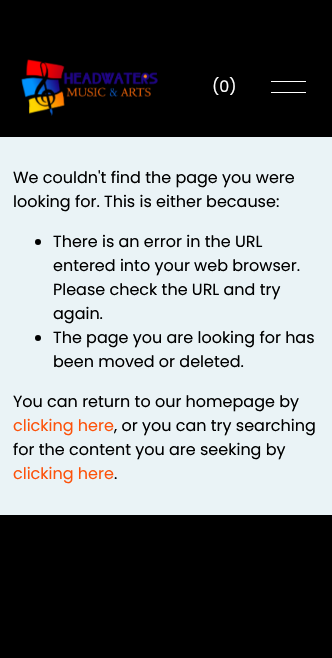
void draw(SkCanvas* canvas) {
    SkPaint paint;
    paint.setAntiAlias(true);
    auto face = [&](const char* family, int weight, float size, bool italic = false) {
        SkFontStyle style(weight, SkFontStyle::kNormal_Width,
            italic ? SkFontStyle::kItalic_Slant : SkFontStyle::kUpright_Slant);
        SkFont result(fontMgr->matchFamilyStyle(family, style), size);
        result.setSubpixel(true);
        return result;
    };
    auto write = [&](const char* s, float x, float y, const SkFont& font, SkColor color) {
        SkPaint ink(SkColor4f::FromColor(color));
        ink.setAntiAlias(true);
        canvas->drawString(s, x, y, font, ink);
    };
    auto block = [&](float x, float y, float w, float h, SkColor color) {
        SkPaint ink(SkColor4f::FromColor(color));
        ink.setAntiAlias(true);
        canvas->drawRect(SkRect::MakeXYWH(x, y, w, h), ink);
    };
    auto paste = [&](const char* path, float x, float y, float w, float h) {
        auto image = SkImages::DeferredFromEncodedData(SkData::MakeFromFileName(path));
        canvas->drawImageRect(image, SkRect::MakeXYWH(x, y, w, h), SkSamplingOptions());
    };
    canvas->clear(SkColorSetRGB(234, 243, 246));
    block(0, 0, 332, 137, SK_ColorBLACK);
    paste("pic1.png", 21, 59, 137, 57);
    auto kFont1 = face("Poppins", 400, 16);
    write("(0)", 212, 92, kFont1, SK_ColorWHITE);
    block(271, 81, 35, 1, SK_ColorWHITE);
    block(271, 92, 35, 1, SK_ColorWHITE);
    write("We couldn't find the page you were", 13, 183, kFont1, SK_ColorBLACK);
    write("looking for. This is either because:", 13, 207, kFont1, SK_ColorBLACK);
    paint.setColor(SK_ColorBLACK);
    canvas->drawCircle(38, 242, 3, paint);
    write("There is an error in the URL", 53, 247, kFont1, SK_ColorBLACK);
    write("entered into your web browser.", 53, 271, kFont1, SK_ColorBLACK);
    write("Please check the URL and try", 53, 295, kFont1, SK_ColorBLACK);
    write("again.", 53, 319, kFont1, SK_ColorBLACK);
    canvas->drawCircle(38, 338, 3, paint);
    write("The page you are looking for has", 53, 343, kFont1, SK_ColorBLACK);
    write("been moved or deleted.", 53, 367, kFont1, SK_ColorBLACK);
    write("You can return to our homepage by", 13, 407, kFont1, SK_ColorBLACK);
    write("clicking here", 13, 431, kFont1, SkColorSetRGB(253, 82, 10));
    write(", or you can try searching", 114, 431, kFont1, SK_ColorBLACK);
    write("for the content you are seeking by", 13, 455, kFont1, SK_ColorBLACK);
    write("clicking here", 13, 479, kFont1, SkColorSetRGB(253, 82, 10));
    write(".", 114, 479, kFont1, SK_ColorBLACK);
    block(0, 515, 332, 143, SK_ColorBLACK);
}
